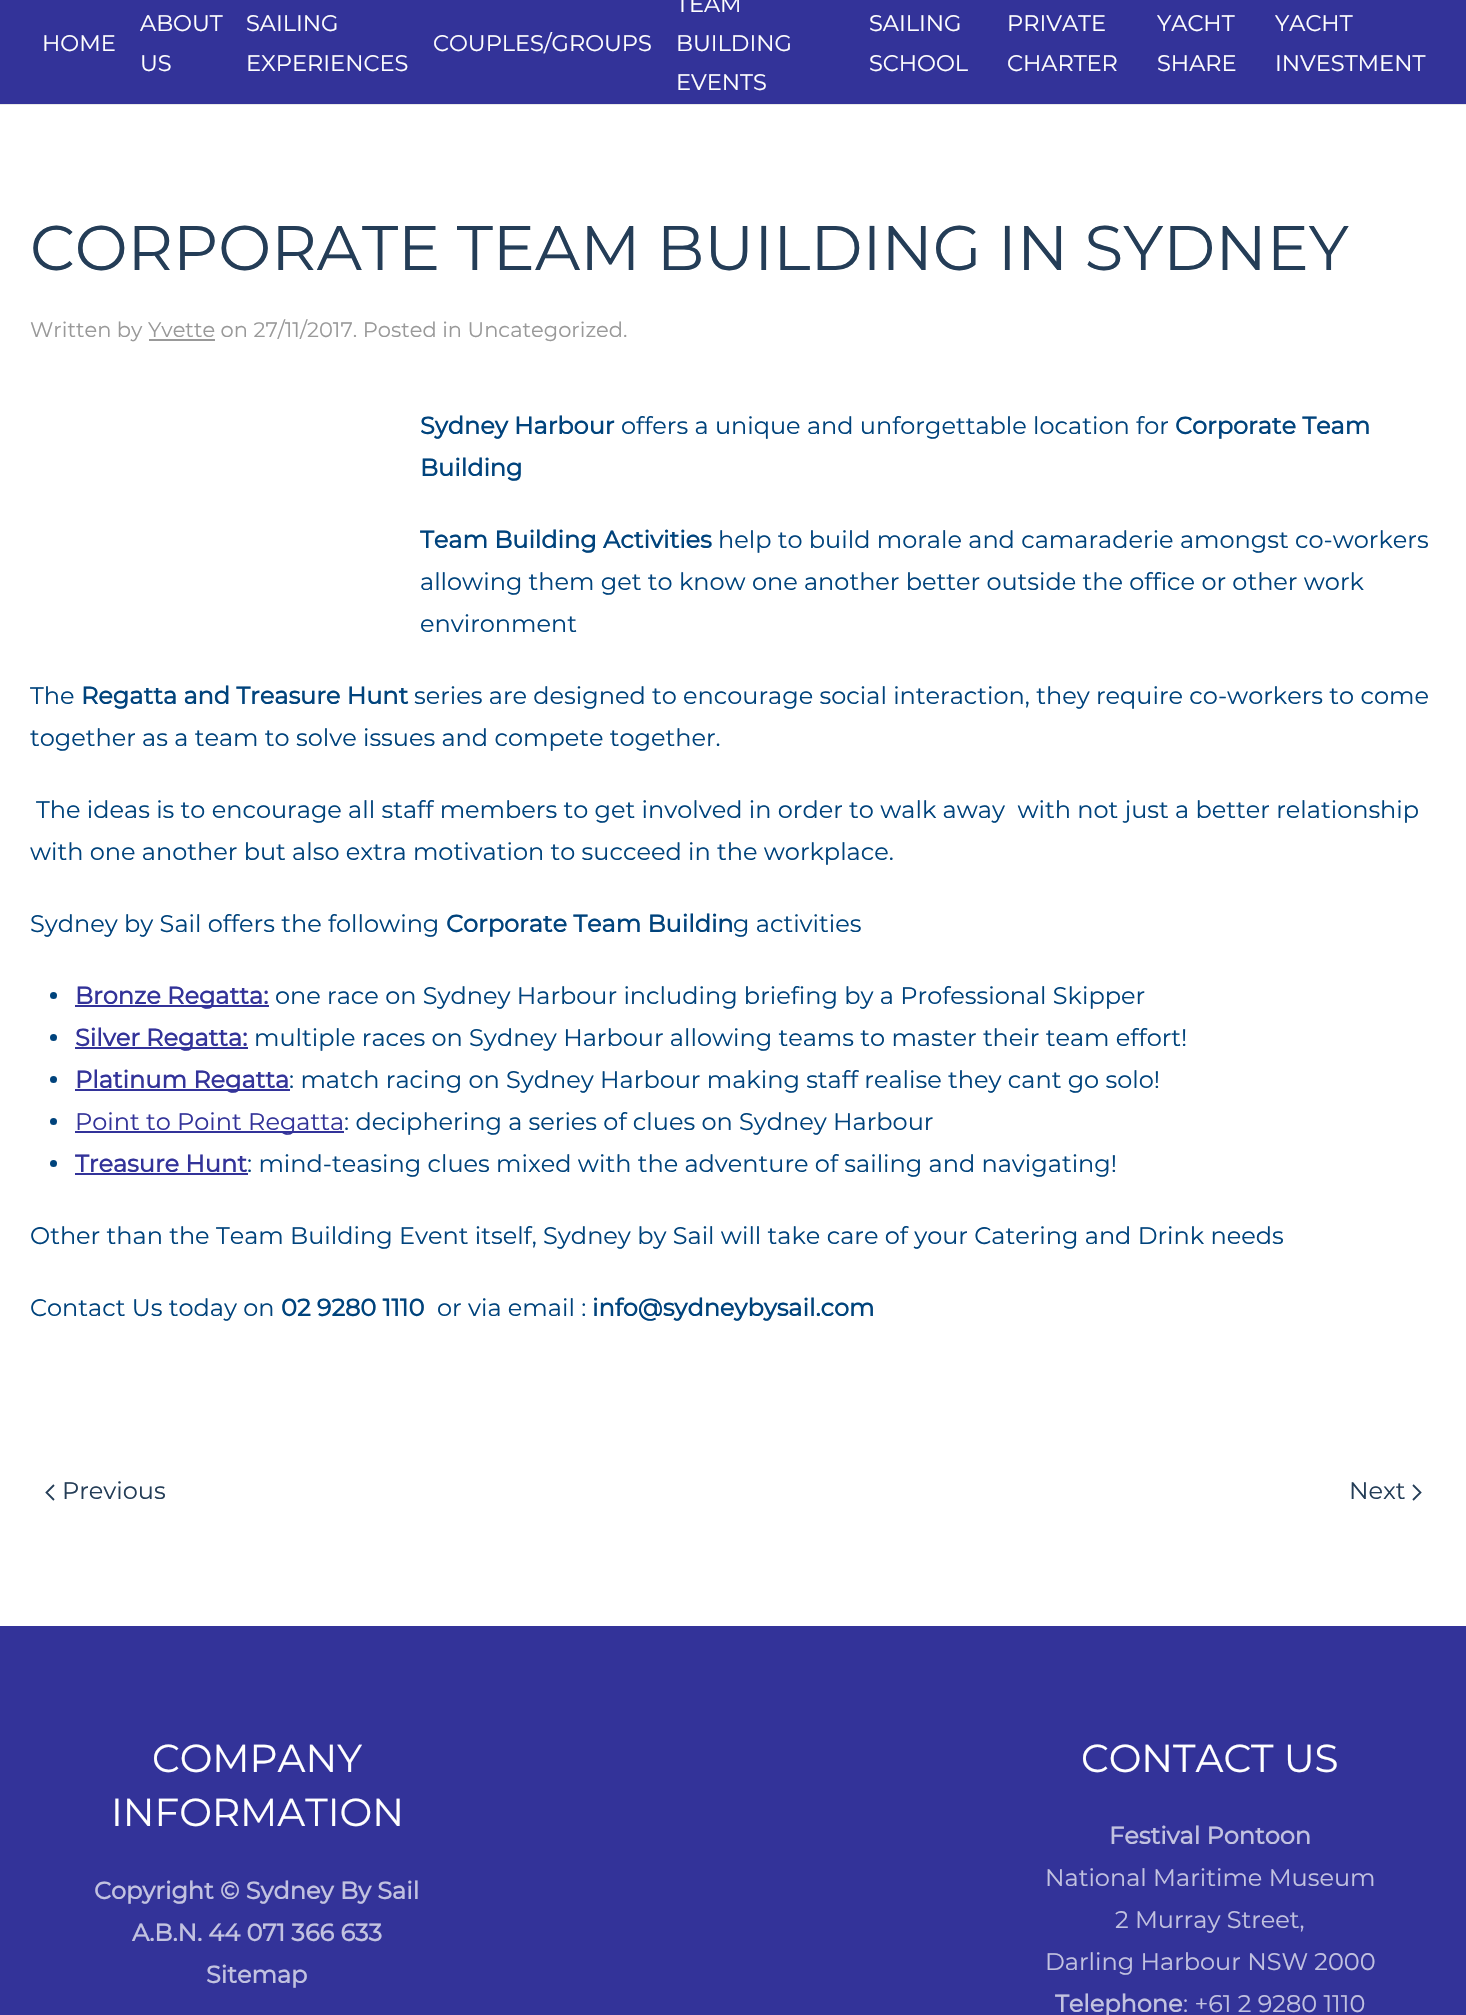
void draw(SkCanvas* canvas) {
    SkPaint paint;
    paint.setAntiAlias(true);
    auto face = [&](const char* family, int weight, float size, bool italic = false) {
        SkFontStyle style(weight, SkFontStyle::kNormal_Width,
            italic ? SkFontStyle::kItalic_Slant : SkFontStyle::kUpright_Slant);
        SkFont result(fontMgr->matchFamilyStyle(family, style), size);
        result.setSubpixel(true);
        return result;
    };
    auto write = [&](const char* s, float x, float y, const SkFont& font, SkColor color) {
        SkPaint ink(SkColor4f::FromColor(color));
        ink.setAntiAlias(true);
        canvas->drawString(s, x, y, font, ink);
    };
    auto block = [&](float x, float y, float w, float h, SkColor color) {
        SkPaint ink(SkColor4f::FromColor(color));
        ink.setAntiAlias(true);
        canvas->drawRect(SkRect::MakeXYWH(x, y, w, h), ink);
    };
    canvas->clear(SkColorSetRGB(51, 51, 153));
    block(0, 104, 1466, 1, SkColorSetRGB(232, 232, 232));
    auto kFont1 = face("Montserrat", 100, 22.5f);
    write("HOME", 42, 51, kFont1, SK_ColorWHITE);
    write("ABOUT", 140, 31, kFont1, SK_ColorWHITE);
    write("US", 140, 71, kFont1, SK_ColorWHITE);
    write("SAILING", 246, 31, kFont1, SK_ColorWHITE);
    write("EXPERIENCES", 246, 71, kFont1, SK_ColorWHITE);
    write("COUPLES/GROUPS", 433, 51, kFont1, SK_ColorWHITE);
    write("TEAM", 676, 12, kFont1, SK_ColorWHITE);
    write("BUILDING", 676, 51, kFont1, SK_ColorWHITE);
    write("EVENTS", 676, 90, kFont1, SK_ColorWHITE);
    write("SAILING", 869, 31, kFont1, SK_ColorWHITE);
    write("SCHOOL", 869, 71, kFont1, SK_ColorWHITE);
    write("PRIVATE", 1007, 31, kFont1, SK_ColorWHITE);
    write("CHARTER", 1007, 71, kFont1, SK_ColorWHITE);
    write("YACHT", 1157, 31, kFont1, SK_ColorWHITE);
    write("SHARE", 1157, 71, kFont1, SK_ColorWHITE);
    write("YACHT", 1275, 31, kFont1, SK_ColorWHITE);
    write("INVESTMENT", 1275, 71, kFont1, SK_ColorWHITE);
    block(0, 105, 1466, 1521, SK_ColorWHITE);
    auto kFont2 = face("Montserrat", 100, 63);
    write("CORPORATE TEAM BUILDING IN SYDNEY", 30, 270, kFont2, SkColorSetRGB(36, 61, 87));
    auto kFont3 = face("Montserrat", 100, 21);
    write("Written by Yvette on 27/11/2017. Posted in Uncategorized.", 30, 337, kFont3, SkColorSetRGB(153, 153, 153));
    block(149, 339, 66, 2, SkColorSetRGB(153, 153, 153));
    auto kFont4 = face("Montserrat", 700, 24);
    write("Sydney Harbour", 420, 434, kFont4, SkColorSetRGB(0, 67, 124));
    auto kFont5 = face("Montserrat", 100, 24);
    write("offers a unique and unforgettable location for", 621, 434, kFont5, SkColorSetRGB(0, 67, 124));
    write("Corporate Team", 1175, 434, kFont4, SkColorSetRGB(0, 67, 124));
    write("Building", 420, 476, kFont4, SkColorSetRGB(0, 67, 124));
    write("Team Building Activities", 420, 548, kFont4, SkColorSetRGB(0, 67, 124));
    write("help to build morale and camaraderie amongst co-workers", 718, 548, kFont5, SkColorSetRGB(0, 67, 124));
    write("allowing them get to know one another better outside the office or other work", 420, 590, kFont5, SkColorSetRGB(0, 67, 124));
    write("environment", 420, 632, kFont5, SkColorSetRGB(0, 67, 124));
    write("The", 30, 704, kFont5, SkColorSetRGB(0, 67, 124));
    write("Regatta and Treasure Hunt", 81, 704, kFont4, SkColorSetRGB(0, 67, 124));
    write("series are designed to encourage social interaction, they require co-workers to come", 414, 704, kFont5, SkColorSetRGB(0, 67, 124));
    write("together as a team to solve issues and compete together.", 30, 746, kFont5, SkColorSetRGB(0, 67, 124));
    write("The ideas is to encourage all staff members to get involved in order to walk away  with not just a better relationship", 36, 818, kFont5, SkColorSetRGB(0, 67, 124));
    write("with one another but also extra motivation to succeed in the workplace.", 30, 860, kFont5, SkColorSetRGB(0, 67, 124));
    write("Sydney by Sail offers the following", 30, 932, kFont5, SkColorSetRGB(0, 67, 124));
    write("Corporate Team Buildin", 446, 932, kFont4, SkColorSetRGB(0, 67, 124));
    write("g activities", 733, 932, kFont5, SkColorSetRGB(0, 67, 124));
    paint.setColor(SkColorSetRGB(0, 67, 124));
    canvas->drawCircle(53.5f, 995.5f, 3.5f, paint);
    block(75, 1005, 194, 2, SkColorSetRGB(51, 51, 153));
    write("Bronze Regatta:", 75, 1004, kFont4, SkColorSetRGB(51, 51, 153));
    write("one race on Sydney Harbour including briefing by a Professional Skipper", 275, 1004, kFont5, SkColorSetRGB(0, 67, 124));
    canvas->drawCircle(53.5f, 1037.5f, 3.5f, paint);
    block(75, 1047, 173, 2, SkColorSetRGB(51, 51, 153));
    write("Silver Regatta:", 75, 1046, kFont4, SkColorSetRGB(51, 51, 153));
    write("multiple races on Sydney Harbour allowing teams to master their team effort!", 254, 1046, kFont5, SkColorSetRGB(0, 67, 124));
    canvas->drawCircle(53.5f, 1079.5f, 3.5f, paint);
    block(75, 1089, 215, 2, SkColorSetRGB(51, 51, 153));
    write("Platinum Regatta", 75, 1088, kFont4, SkColorSetRGB(51, 51, 153));
    write(": match racing on Sydney Harbour making staff realise they cant go solo!", 289, 1088, kFont5, SkColorSetRGB(0, 67, 124));
    canvas->drawCircle(53.5f, 1121.5f, 3.5f, paint);
    block(75, 1131, 269, 2, SkColorSetRGB(51, 51, 153));
    write("Point to Point Regatta", 75, 1130, kFont5, SkColorSetRGB(51, 51, 153));
    write(": deciphering a series of clues on Sydney Harbour", 344, 1130, kFont5, SkColorSetRGB(0, 67, 124));
    canvas->drawCircle(53.5f, 1163.5f, 3.5f, paint);
    write("Treasure Hunt", 75, 1172, kFont4, SkColorSetRGB(51, 51, 153));
    block(75, 1173, 173, 2, SkColorSetRGB(51, 51, 153));
    write(": mind-teasing clues mixed with the adventure of sailing and navigating!", 247, 1172, kFont5, SkColorSetRGB(0, 67, 124));
    write("Other than the Team Building Event itself, Sydney by Sail will take care of your Catering and Drink needs", 30, 1244, kFont5, SkColorSetRGB(0, 67, 124));
    write("Contact Us today on", 30, 1316, kFont5, SkColorSetRGB(0, 67, 124));
    write("02 9280 1110", 281, 1316, kFont4, SkColorSetRGB(0, 67, 124));
    write("or via email :", 437, 1316, kFont5, SkColorSetRGB(0, 67, 124));
    write("info@sydneybysail.com", 592, 1316, kFont4, SkColorSetRGB(0, 67, 124));
    paint.setStyle(SkPaint::kStroke_Style);
    paint.setStrokeWidth(1.8f);
    paint.setColor(SkColorSetRGB(36, 61, 87));
    canvas->drawPath(SkPathBuilder().moveTo(54, 1485).lineTo(46.5f, 1492.5f).lineTo(54, 1500).detach(), paint);
    write("Previous", 62, 1499, kFont5, SkColorSetRGB(36, 61, 87));
    write("Next", 1349, 1499, kFont5, SkColorSetRGB(36, 61, 87));
    canvas->drawPath(SkPathBuilder().moveTo(1413, 1485).lineTo(1420.5f, 1492.5f).lineTo(1413, 1500).detach(), paint);
    auto kFont6 = face("Montserrat", 100, 39);
    write("COMPANY", 152, 1772, kFont6, SK_ColorWHITE);
    write("INFORMATION", 111, 1826, kFont6, SK_ColorWHITE);
    write("Copyright © Sydney By Sail", 94, 1899, kFont4, SkColorSetRGB(194, 194, 224));
    write("A.B.N. 44 071 366 633", 132, 1941, kFont4, SkColorSetRGB(194, 194, 224));
    write("Sitemap", 206, 1983, kFont4, SkColorSetRGB(194, 194, 224));
    write("CONTACT US", 1081, 1772, kFont6, SK_ColorWHITE);
    write("Festival Pontoon", 1109, 1844, kFont4, SkColorSetRGB(194, 194, 224));
    write("National Maritime Museum", 1045, 1886, kFont5, SkColorSetRGB(194, 194, 224));
    write("2 Murray Street,", 1115, 1928, kFont5, SkColorSetRGB(194, 194, 224));
    write("Darling Harbour NSW 2000", 1045, 1970, kFont5, SkColorSetRGB(194, 194, 224));
    write("Telephone", 1055, 2012, kFont4, SkColorSetRGB(194, 194, 224));
    write(": +61 2 9280 1110", 1183, 2012, kFont5, SkColorSetRGB(194, 194, 224));
}
